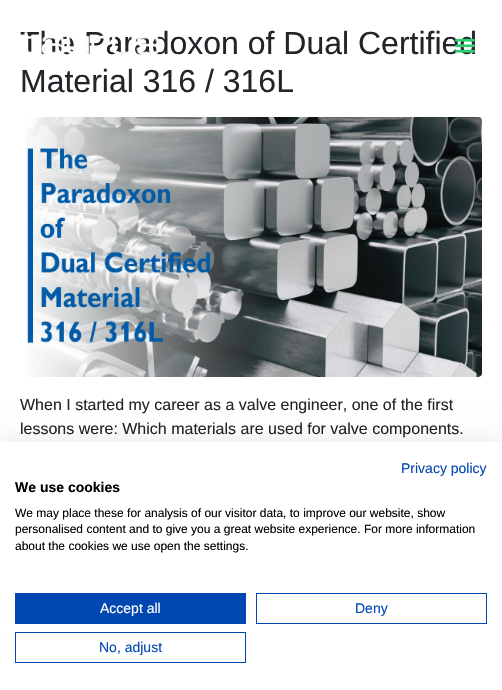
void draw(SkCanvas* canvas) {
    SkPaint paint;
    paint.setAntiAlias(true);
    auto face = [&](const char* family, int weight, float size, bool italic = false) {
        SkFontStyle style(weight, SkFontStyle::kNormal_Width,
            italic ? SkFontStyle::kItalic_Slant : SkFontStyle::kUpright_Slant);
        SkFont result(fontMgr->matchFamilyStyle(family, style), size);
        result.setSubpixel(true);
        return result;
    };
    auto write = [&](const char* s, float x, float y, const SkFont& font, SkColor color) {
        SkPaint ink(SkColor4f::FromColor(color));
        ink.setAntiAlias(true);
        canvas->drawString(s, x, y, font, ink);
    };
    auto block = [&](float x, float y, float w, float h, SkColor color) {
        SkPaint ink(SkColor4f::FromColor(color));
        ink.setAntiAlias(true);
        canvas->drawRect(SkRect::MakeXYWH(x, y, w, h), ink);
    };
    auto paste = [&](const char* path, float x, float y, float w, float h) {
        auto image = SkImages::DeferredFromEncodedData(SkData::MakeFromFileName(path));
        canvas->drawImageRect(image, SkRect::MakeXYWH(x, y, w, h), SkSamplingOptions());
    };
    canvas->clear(SK_ColorWHITE);
    auto kFont1 = face("Liberation Sans", 400, 32);
    write("The Paradoxon of Dual Certified", 20, 54, kFont1, SkColorSetRGB(33, 37, 41));
    write("Material 316 / 316L", 20, 92, kFont1, SkColorSetRGB(33, 37, 41));
    paste("pic1.png", 25, 117, 457, 260);
    auto kFont2 = face("Liberation Sans", 400, 16);
    write("When I started my career as a valve engineer, one of the first", 20, 410, kFont2, SkColorSetRGB(33, 37, 41));
    write("lessons were: Which materials are used for valve components.", 20, 434, kFont2, SkColorSetRGB(33, 37, 41));
    paste("pic2.png", 23, 32, 137, 23);
    paste("pic3.png", 454, 38, 22, 15);
    paint.setColor(SkColorSetARGB(26, 0, 0, 0));
    paint.setMaskFilter(SkMaskFilter::MakeBlur(kNormal_SkBlurStyle, 12));
    canvas->drawRect(SkRect::MakeXYWH(0, 442, 502, 248), paint);
    paint.setMaskFilter(nullptr);
    block(0, 442, 502, 248, SK_ColorWHITE);
    auto kFont3 = face("Liberation Sans", 400, 14);
    write("Privacy policy", 401, 473, kFont3, SkColorSetRGB(0, 71, 178));
    auto kFont4 = face("Liberation Sans", 700, 14);
    write("We use cookies", 15, 492, kFont4, SK_ColorBLACK);
    auto kFont5 = face("Liberation Sans", 400, 12);
    write("We may place these for analysis of our visitor data, to improve our website, show", 15, 517, kFont5, SK_ColorBLACK);
    write("personalised content and to give you a great website experience. For more information", 15, 533, kFont5, SK_ColorBLACK);
    write("about the cookies we use open the settings.", 15, 550, kFont5, SK_ColorBLACK);
    block(15, 593, 231, 31, SkColorSetRGB(0, 71, 178));
    write("Accept all", 100, 613, kFont3, SK_ColorWHITE);
    paint.setStyle(SkPaint::kStroke_Style);
    paint.setStrokeWidth(1);
    paint.setColor(SkColorSetRGB(0, 71, 178));
    canvas->drawRect(SkRect::MakeXYWH(256.5f, 593.5f, 230, 30), paint);
    write("Deny", 355, 613, kFont3, SkColorSetRGB(0, 71, 178));
    canvas->drawRect(SkRect::MakeXYWH(15.5f, 632.5f, 230, 30), paint);
    write("No, adjust", 99, 652, kFont3, SkColorSetRGB(0, 71, 178));
}
